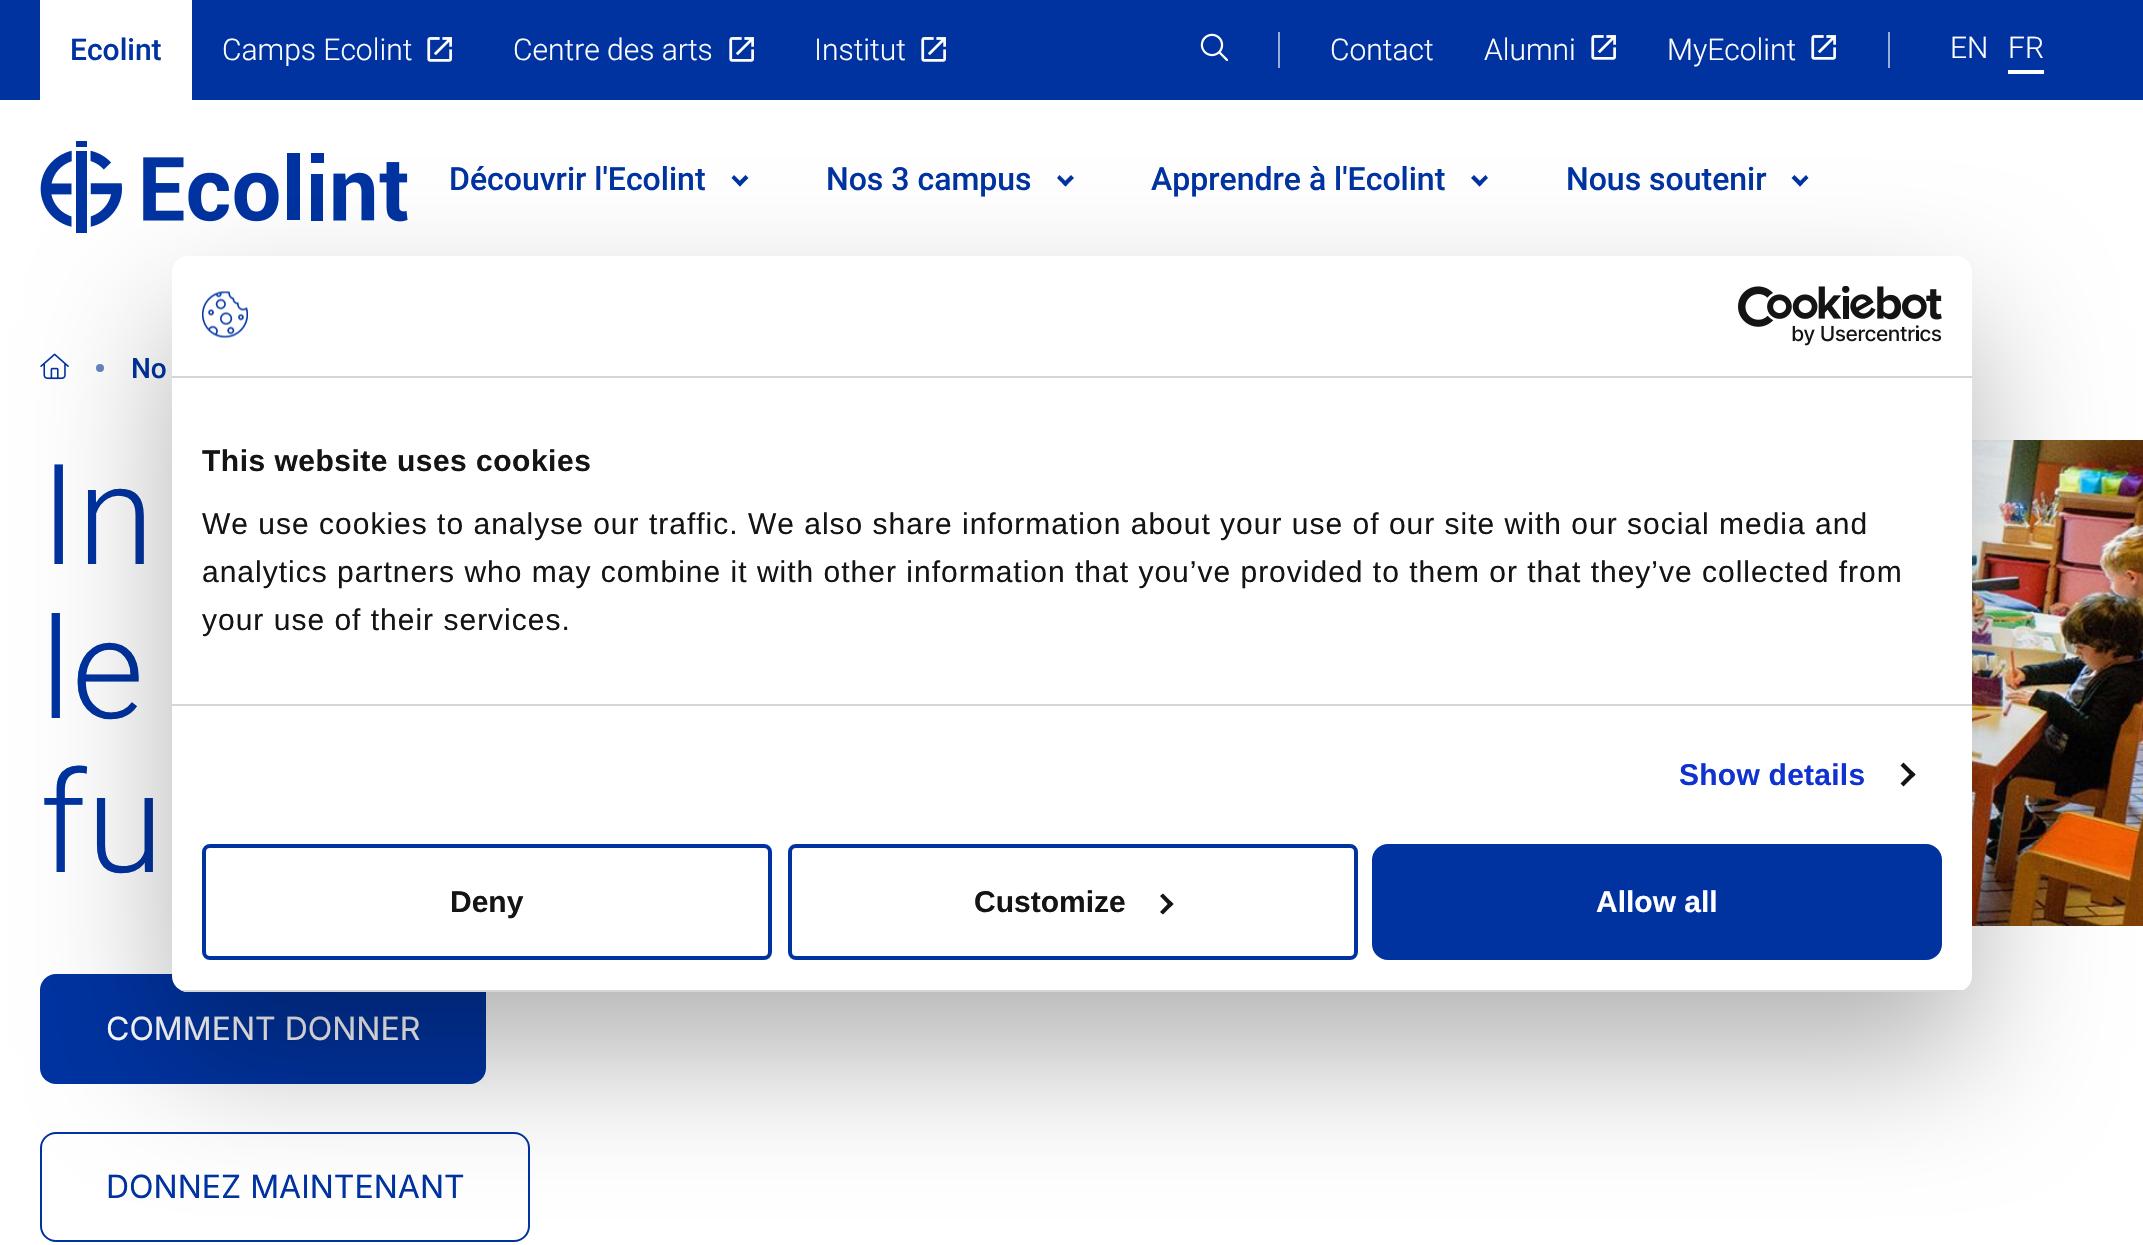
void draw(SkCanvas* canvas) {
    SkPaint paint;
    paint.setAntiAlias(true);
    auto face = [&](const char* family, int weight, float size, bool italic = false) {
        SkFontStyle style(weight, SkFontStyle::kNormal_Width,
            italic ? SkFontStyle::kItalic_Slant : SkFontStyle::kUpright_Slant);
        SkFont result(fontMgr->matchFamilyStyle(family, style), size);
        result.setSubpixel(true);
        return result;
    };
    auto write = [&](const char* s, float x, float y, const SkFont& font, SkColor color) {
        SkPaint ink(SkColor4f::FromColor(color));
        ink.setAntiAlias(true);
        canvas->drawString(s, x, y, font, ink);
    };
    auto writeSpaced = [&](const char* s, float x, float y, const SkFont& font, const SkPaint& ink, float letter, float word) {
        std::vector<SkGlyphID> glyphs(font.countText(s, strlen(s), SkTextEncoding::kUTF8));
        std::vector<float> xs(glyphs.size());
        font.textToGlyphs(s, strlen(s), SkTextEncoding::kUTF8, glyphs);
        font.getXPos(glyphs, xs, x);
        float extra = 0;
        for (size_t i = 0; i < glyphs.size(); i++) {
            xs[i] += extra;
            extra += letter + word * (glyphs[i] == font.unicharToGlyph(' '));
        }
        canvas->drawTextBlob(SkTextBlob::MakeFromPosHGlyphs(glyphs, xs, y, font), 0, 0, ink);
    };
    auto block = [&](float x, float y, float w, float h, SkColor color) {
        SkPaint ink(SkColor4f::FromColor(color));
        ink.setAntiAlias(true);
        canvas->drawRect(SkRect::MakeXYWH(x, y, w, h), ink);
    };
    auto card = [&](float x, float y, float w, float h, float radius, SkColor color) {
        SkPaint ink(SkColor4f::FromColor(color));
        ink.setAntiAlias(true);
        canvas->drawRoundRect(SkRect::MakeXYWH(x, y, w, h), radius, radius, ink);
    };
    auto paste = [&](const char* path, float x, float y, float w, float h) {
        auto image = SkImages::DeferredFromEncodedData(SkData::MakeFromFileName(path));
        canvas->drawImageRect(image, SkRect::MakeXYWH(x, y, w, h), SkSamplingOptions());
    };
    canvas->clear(SK_ColorWHITE);
    block(0, 0, 2143, 100, SkColorSetRGB(0, 51, 160));
    block(40, 0, 152, 100, SK_ColorWHITE);
    auto kFont1 = face("Roboto", 500, 30);
    write("Ecolint", 70, 60, kFont1, SkColorSetRGB(0, 51, 160));
    auto kFont2 = face("Roboto", 300, 30);
    write("Camps Ecolint", 222, 60, kFont2, SK_ColorWHITE);
    paste("pic1.png", 427, 37, 25, 25);
    write("Centre des arts", 513, 60, kFont2, SK_ColorWHITE);
    paste("pic1.png", 729, 37, 25, 25);
    write("Institut", 814, 60, kFont2, SK_ColorWHITE);
    paste("pic1.png", 921, 37, 25, 25);
    paste("pic2.png", 1200, 33, 29, 29);
    block(1888, 32, 2, 36, SkColorSetRGB(153, 173, 217));
    block(1278, 32, 2, 36, SkColorSetRGB(153, 173, 217));
    write("Contact", 1330, 60, kFont2, SK_ColorWHITE);
    write("Alumni", 1484, 60, kFont2, SK_ColorWHITE);
    paste("pic1.png", 1591, 35, 25, 25);
    write("MyEcolint", 1667, 60, kFont2, SK_ColorWHITE);
    paste("pic1.png", 1811, 35, 25, 25);
    write("EN", 1950, 58, kFont2, SK_ColorWHITE);
    block(2008, 70, 36, 4, SK_ColorWHITE);
    write("FR", 2008, 58, kFont2, SK_ColorWHITE);
    paste("pic3.png", 40, 141, 368, 92);
    auto kFont3 = face("Roboto", 500, 32);
    write("Découvrir l'Ecolint", 449, 190, kFont3, SkColorSetRGB(0, 51, 160));
    paint.setColor(SkColorSetRGB(0, 51, 160));
    canvas->drawPath(SkPathBuilder().moveTo(745.5f, 175).lineTo(748.5f, 178).lineTo(740, 186.5f).lineTo(737, 183.5f).close().detach(), paint);
    canvas->drawPath(SkPathBuilder().moveTo(734, 175).lineTo(742.5f, 183.5f).lineTo(740, 186.5f).lineTo(731.5f, 178).close().detach(), paint);
    write("Nos 3 campus", 826, 190, kFont3, SkColorSetRGB(0, 51, 160));
    canvas->drawPath(SkPathBuilder().moveTo(1071, 175).lineTo(1074, 178).lineTo(1065.5f, 186.5f).lineTo(1062.5f, 183.5f).close().detach(), paint);
    canvas->drawPath(SkPathBuilder().moveTo(1059.5f, 175).lineTo(1068, 183.5f).lineTo(1065.5f, 186.5f).lineTo(1057, 178).close().detach(), paint);
    write("Apprendre à l'Ecolint", 1151, 190, kFont3, SkColorSetRGB(0, 51, 160));
    canvas->drawPath(SkPathBuilder().moveTo(1485.5f, 175).lineTo(1488, 178).lineTo(1479.5f, 186.5f).lineTo(1477, 183.5f).close().detach(), paint);
    canvas->drawPath(SkPathBuilder().moveTo(1474, 175).lineTo(1482.5f, 183.5f).lineTo(1479.5f, 186.5f).lineTo(1471, 178).close().detach(), paint);
    write("Nous soutenir", 1566, 190, kFont3, SkColorSetRGB(0, 51, 160));
    canvas->drawPath(SkPathBuilder().moveTo(1806, 175).lineTo(1808.5f, 178).lineTo(1800, 186.5f).lineTo(1797.5f, 183.5f).close().detach(), paint);
    canvas->drawPath(SkPathBuilder().moveTo(1794.5f, 175).lineTo(1803, 183.5f).lineTo(1800, 186.5f).lineTo(1791.5f, 178).close().detach(), paint);
    paste("pic4.png", 40, 353, 29, 27);
    paint.setColor(SkColorSetRGB(102, 133, 198));
    canvas->drawCircle(100, 368, 4, paint);
    auto kFont4 = face("Roboto", 500, 28);
    write("No", 131, 378, kFont4, SkColorSetRGB(0, 51, 160));
    auto kFont5 = face("Roboto", 300, 140);
    write("In", 40, 564, kFont5, SkColorSetRGB(0, 51, 160));
    write("le", 40, 718, kFont5, SkColorSetRGB(0, 51, 160));
    write("fu", 40, 872, kFont5, SkColorSetRGB(0, 51, 160));
    card(40, 974, 446, 110, 16, SkColorSetRGB(0, 51, 160));
    auto kFont6 = face("Inter", 400, 32);
    write("COMMENT DONNER", 106, 1040, kFont6, SK_ColorWHITE);
    paint.setStyle(SkPaint::kStroke_Style);
    paint.setStrokeWidth(2);
    paint.setColor(SkColorSetRGB(0, 51, 160));
    canvas->drawRoundRect(SkRect::MakeXYWH(41, 1133, 488, 108), 15, 15, paint);
    write("DONNEZ MAINTENANT", 106, 1198, kFont6, SkColorSetRGB(0, 51, 160));
    paste("pic5.png", 1972, 440, 171, 486);
    paint.setStyle(SkPaint::kFill_Style);
    paint.setColor(SkColorSetARGB(77, 0, 0, 0));
    paint.setMaskFilter(SkMaskFilter::MakeBlur(kNormal_SkBlurStyle, 68));
    canvas->drawRoundRect(SkRect::MakeXYWH(172, 320, 1800, 736), 16, 16, paint);
    paint.setMaskFilter(nullptr);
    card(172, 256, 1800, 736, 16, SK_ColorWHITE);
    block(172, 376, 1800, 2, SkColorSetRGB(214, 214, 214));
    paste("pic6.png", 202, 291, 46, 47);
    paste("pic7.png", 1738, 286, 204, 60);
    block(172, 704, 1800, 2, SkColorSetRGB(214, 214, 214));
    auto kFont7 = face("Liberation Sans", 700, 30);
    paint.setColor(SkColorSetRGB(20, 20, 20));
    writeSpaced("This website uses cookies", 202, 471, kFont7, paint, 0.5f, 0);
    auto kFont8 = face("Liberation Sans", 400, 30);
    writeSpaced("We use cookies to analyse our traffic. We also share information about your use of our site with our social media and", 202, 534, kFont8, paint, 1, 0);
    writeSpaced("analytics partners who may combine it with other information that you’ve provided to them or that they’ve collected from", 202, 582, kFont8, paint, 1, 0);
    writeSpaced("your use of their services.", 202, 630, kFont8, paint, 1, 0);
    paint.setColor(SkColorSetRGB(16, 50, 207));
    writeSpaced("Show details", 1679, 785, kFont7, paint, 0.25f, 0);
    paint.setColor(SkColorSetRGB(20, 20, 20));
    canvas->drawPath(SkPathBuilder().moveTo(1903.5f, 762.5f).lineTo(1915.5f, 774.5f).lineTo(1912.5f, 777.5f).lineTo(1900.5f, 765.5f).close().detach(), paint);
    canvas->drawPath(SkPathBuilder().moveTo(1912.5f, 771.5f).lineTo(1915.5f, 774.5f).lineTo(1903.5f, 786.5f).lineTo(1900.5f, 783.5f).close().detach(), paint);
    canvas->save();
    canvas->clipPath(SkPathBuilder().moveTo(188, 256).lineTo(1956, 256).cubicTo(1965, 256, 1972, 263, 1972, 272).lineTo(1972, 976).cubicTo(1972, 985, 1965, 992, 1956, 992).lineTo(188, 992).cubicTo(179, 992, 172, 985, 172, 976).lineTo(172, 272).cubicTo(172, 263, 179, 256, 188, 256).close().detach(), true);
    block(172, 990, 1800, 2, SkColorSetRGB(214, 214, 214));
    canvas->restore();
    paint.setStyle(SkPaint::kStroke_Style);
    paint.setStrokeWidth(4);
    paint.setColor(SkColorSetRGB(0, 51, 160));
    canvas->drawRoundRect(SkRect::MakeXYWH(204, 846, 566, 112), 6, 6, paint);
    write("Deny", 450, 912, kFont7, SkColorSetRGB(20, 20, 20));
    canvas->drawRoundRect(SkRect::MakeXYWH(790, 846, 566, 112), 6, 6, paint);
    write("Customize", 974, 912, kFont7, SkColorSetRGB(20, 20, 20));
    paint.setStyle(SkPaint::kFill_Style);
    paint.setColor(SkColorSetRGB(20, 20, 20));
    canvas->drawPath(SkPathBuilder().moveTo(1163, 893.5f).lineTo(1173.5f, 904).lineTo(1170.5f, 907).lineTo(1160, 896).close().detach(), paint);
    canvas->drawPath(SkPathBuilder().moveTo(1170.5f, 901).lineTo(1173.5f, 904).lineTo(1163, 914.5f).lineTo(1160, 912).close().detach(), paint);
    paint.setColor(SkColorSetRGB(0, 51, 160));
    canvas->drawRoundRect(SkRect::MakeXYWH(1374, 846, 566, 112), 14, 14, paint);
    paint.setStyle(SkPaint::kStroke_Style);
    canvas->drawRoundRect(SkRect::MakeXYWH(1374, 846, 566, 112), 14, 14, paint);
    write("Allow all", 1596, 912, kFont7, SK_ColorWHITE);
}
